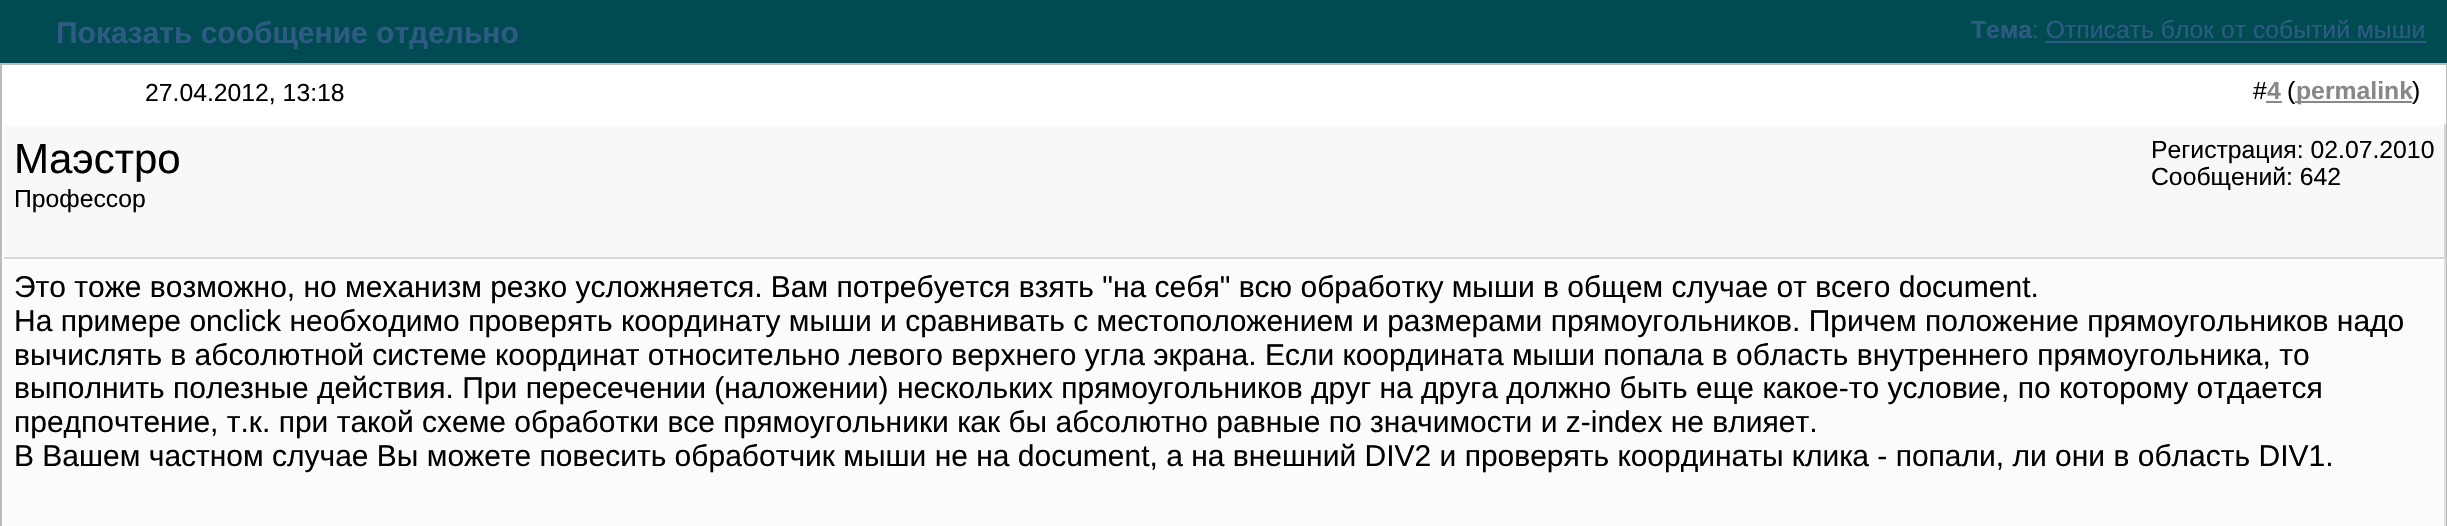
void draw(SkCanvas* canvas) {
    SkPaint paint;
    paint.setAntiAlias(true);
    auto face = [&](const char* family, int weight, float size, bool italic = false) {
        SkFontStyle style(weight, SkFontStyle::kNormal_Width,
            italic ? SkFontStyle::kItalic_Slant : SkFontStyle::kUpright_Slant);
        SkFont result(fontMgr->matchFamilyStyle(family, style), size);
        result.setSubpixel(true);
        return result;
    };
    auto write = [&](const char* s, float x, float y, const SkFont& font, SkColor color) {
        SkPaint ink(SkColor4f::FromColor(color));
        ink.setAntiAlias(true);
        canvas->drawString(s, x, y, font, ink);
    };
    auto block = [&](float x, float y, float w, float h, SkColor color) {
        SkPaint ink(SkColor4f::FromColor(color));
        ink.setAntiAlias(true);
        canvas->drawRect(SkRect::MakeXYWH(x, y, w, h), ink);
    };
    canvas->clear(SkColorSetRGB(0, 75, 82));
    auto kFont1 = face("Liberation Sans", 700, 30);
    write("Показать сообщение отдельно", 56, 43, kFont1, SkColorSetRGB(46, 91, 130));
    auto kFont2 = face("Liberation Sans", 700, 24.75f);
    write("Тема", 1971, 38, kFont2, SkColorSetRGB(46, 91, 130));
    auto kFont3 = face("Liberation Sans", 400, 24.75f);
    write(": Отписать блок от событий мыши", 2032, 38, kFont3, SkColorSetRGB(46, 91, 130));
    block(2045, 41, 381, 2, SkColorSetRGB(46, 91, 130));
    paint.setStyle(SkPaint::kStroke_Style);
    paint.setStrokeWidth(2);
    paint.setColor(SkColorSetRGB(187, 187, 187));
    canvas->drawRect(SkRect::MakeXYWH(1, 64, 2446, 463), paint);
    block(2, 65, 2444, 61, SK_ColorWHITE);
    write("27.04.2012, 13:18", 145, 101, kFont3, SK_ColorBLACK);
    write("#", 2253, 99, kFont3, SK_ColorBLACK);
    write("4", 2267, 99, kFont2, SkColorSetRGB(136, 136, 136));
    block(2266, 101, 16, 2, SkColorSetRGB(136, 136, 136));
    write("(", 2287, 99, kFont3, SK_ColorBLACK);
    block(2295, 101, 117, 2, SkColorSetRGB(136, 136, 136));
    write("permalink", 2296, 99, kFont2, SkColorSetRGB(136, 136, 136));
    write(")", 2412, 99, kFont3, SK_ColorBLACK);
    block(4, 126, 2440, 131, SkColorSetRGB(248, 248, 248));
    block(2444, 124, 2, 135, SkColorSetRGB(215, 215, 215));
    block(2, 257, 2444, 2, SkColorSetRGB(215, 215, 215));
    block(2, 124, 2, 135, SK_ColorWHITE);
    auto kFont4 = face("Liberation Sans", 400, 42);
    write("Маэстро", 14, 173, kFont4, SK_ColorBLACK);
    write("Профессор", 14, 207, kFont3, SK_ColorBLACK);
    write("Регистрация: 02.07.2010", 2151, 158, kFont3, SK_ColorBLACK);
    write("Сообщений: 642", 2151, 185, kFont3, SK_ColorBLACK);
    block(4, 261, 2440, 265, SkColorSetRGB(251, 251, 251));
    block(2, 259, 2444, 2, SK_ColorWHITE);
    block(2444, 259, 2, 267, SkColorSetRGB(224, 224, 224));
    block(2, 259, 2, 267, SK_ColorWHITE);
    auto kFont5 = face("Liberation Sans", 400, 30);
    write("Это тоже возможно, но механизм резко усложняется. Вам потребуется взять \"на себя\" всю обработку мыши в общем случае от всего document.", 14, 297, kFont5, SK_ColorBLACK);
    write("На примере onclick необходимо проверять координату мыши и сравнивать с местоположением и размерами прямоугольников. Причем положение прямоугольников надо", 14, 331, kFont5, SK_ColorBLACK);
    write("вычислять в абсолютной системе координат относительно левого верхнего угла экрана. Если координата мыши попала в область внутреннего прямоугольника, то", 14, 365, kFont5, SK_ColorBLACK);
    write("выполнить полезные действия. При пересечении (наложении) нескольких прямоугольников друг на друга должно быть еще какое-то условие, по которому отдается", 14, 398, kFont5, SK_ColorBLACK);
    write("предпочтение, т.к. при такой схеме обработки все прямоугольники как бы абсолютно равные по значимости и z-index не влияет.", 14, 432, kFont5, SK_ColorBLACK);
    write("В Вашем частном случае Вы можете повесить обработчик мыши не на document, а на внешний DIV2 и проверять координаты клика - попали, ли они в область DIV1.", 14, 466, kFont5, SK_ColorBLACK);
}
